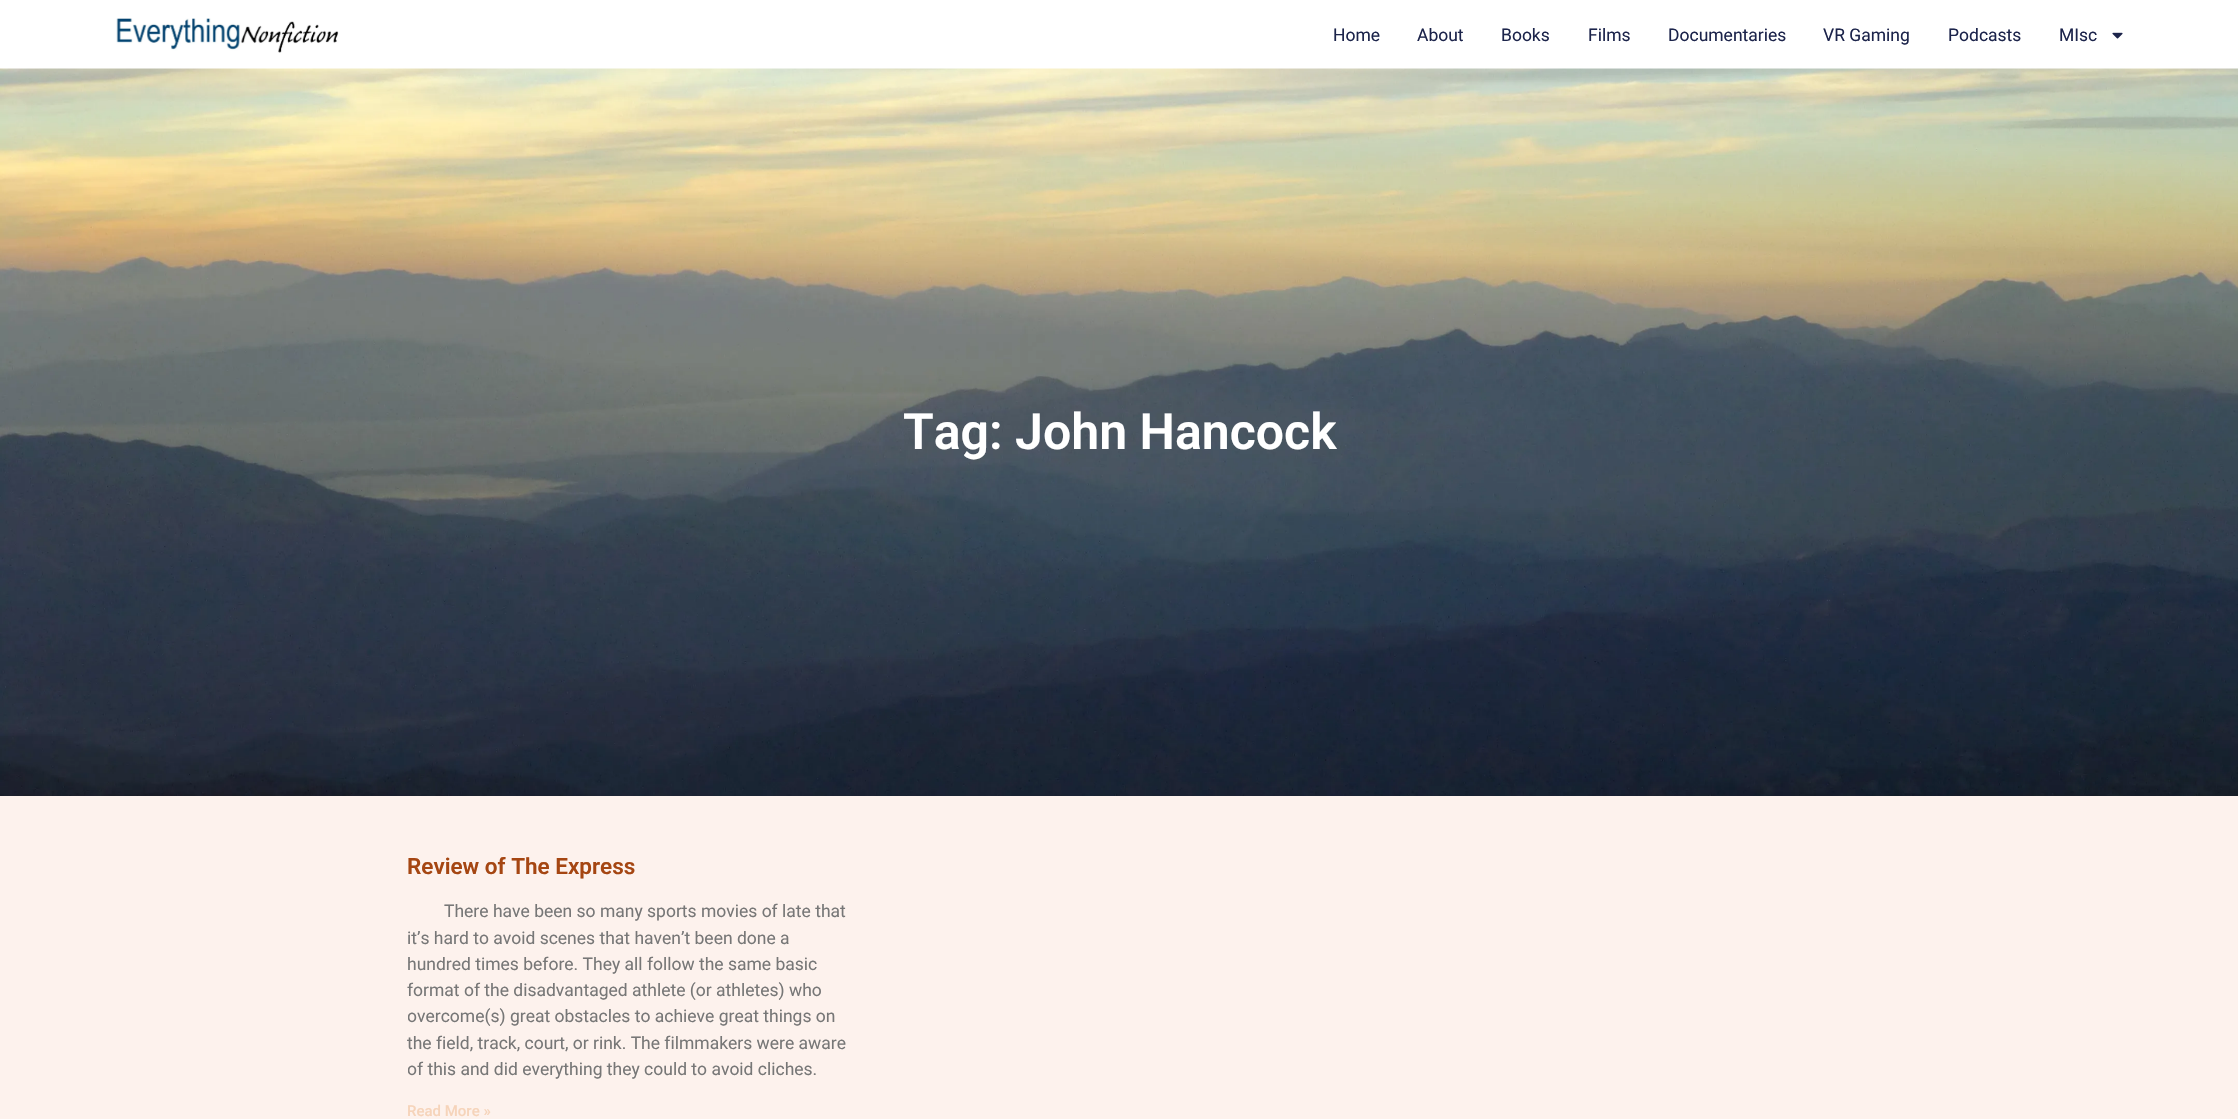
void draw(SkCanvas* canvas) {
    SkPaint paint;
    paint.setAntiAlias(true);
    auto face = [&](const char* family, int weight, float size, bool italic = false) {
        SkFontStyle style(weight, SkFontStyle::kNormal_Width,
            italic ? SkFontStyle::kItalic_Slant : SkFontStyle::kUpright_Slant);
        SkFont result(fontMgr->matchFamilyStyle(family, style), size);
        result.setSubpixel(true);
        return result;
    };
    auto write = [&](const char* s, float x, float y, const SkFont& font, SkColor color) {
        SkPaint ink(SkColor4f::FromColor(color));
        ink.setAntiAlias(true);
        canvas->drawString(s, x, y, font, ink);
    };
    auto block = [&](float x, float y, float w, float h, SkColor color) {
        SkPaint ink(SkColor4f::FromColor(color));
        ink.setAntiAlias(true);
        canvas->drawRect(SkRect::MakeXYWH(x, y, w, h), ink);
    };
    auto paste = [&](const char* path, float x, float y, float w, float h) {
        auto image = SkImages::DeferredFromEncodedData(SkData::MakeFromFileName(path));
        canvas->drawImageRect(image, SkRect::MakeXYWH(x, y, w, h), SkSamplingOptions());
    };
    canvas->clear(SK_ColorWHITE);
    paste("pic1.png", 116, 18, 223, 35);
    auto kFont1 = face("Roboto", 400, 17.5f);
    write("Home", 1333, 41, kFont1, SkColorSetRGB(28, 36, 75));
    write("About", 1417, 41, kFont1, SkColorSetRGB(28, 36, 75));
    write("Books", 1501, 41, kFont1, SkColorSetRGB(28, 36, 75));
    write("Films", 1588, 41, kFont1, SkColorSetRGB(28, 36, 75));
    write("Documentaries", 1668, 41, kFont1, SkColorSetRGB(28, 36, 75));
    write("VR Gaming", 1823, 41, kFont1, SkColorSetRGB(28, 36, 75));
    write("Podcasts", 1948, 41, kFont1, SkColorSetRGB(28, 36, 75));
    write("MIsc", 2059, 41, kFont1, SkColorSetRGB(28, 36, 75));
    paste("pic2.png", 2112, 32, 11, 7);
    paste("pic3.png", 0, 68, 2238, 728);
    block(0, 68, 2238, 1, SkColorSetARGB(128, 255, 255, 255));
    auto kFont2 = face("Roboto", 600, 50);
    write("Tag: John Hancock", 903, 449, kFont2, SK_ColorWHITE);
    block(0, 796, 2238, 323, SkColorSetRGB(253, 242, 237));
    auto kFont3 = face("Roboto", 600, 22.5f);
    write("Review of The Express", 407, 874, kFont3, SkColorSetRGB(165, 70, 18));
    write("There have been so many sports movies of late that", 444, 917, kFont1, SkColorSetRGB(119, 119, 119));
    write("it’s hard to avoid scenes that haven’t been done a", 407, 944, kFont1, SkColorSetRGB(119, 119, 119));
    write("hundred times before. They all follow the same basic", 407, 970, kFont1, SkColorSetRGB(119, 119, 119));
    write("format of the disadvantaged athlete (or athletes) who", 407, 996, kFont1, SkColorSetRGB(119, 119, 119));
    canvas->save();
    canvas->clipRect(SkRect::MakeXYWH(408, 853, 450, 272));
    write("overcome(s) great obstacles to achieve great things on", 407, 1022, kFont1, SkColorSetRGB(119, 119, 119));
    canvas->restore();
    write("the field, track, court, or rink. The filmmakers were aware", 407, 1049, kFont1, SkColorSetRGB(119, 119, 119));
    canvas->save();
    canvas->clipRect(SkRect::MakeXYWH(408, 853, 450, 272));
    write("of this and did everything they could to avoid cliches.", 407, 1075, kFont1, SkColorSetRGB(119, 119, 119));
    canvas->restore();
    auto kFont4 = face("Roboto", 500, 15);
    write("Read More »", 407, 1116, kFont4, SkColorSetRGB(246, 212, 186));
}
